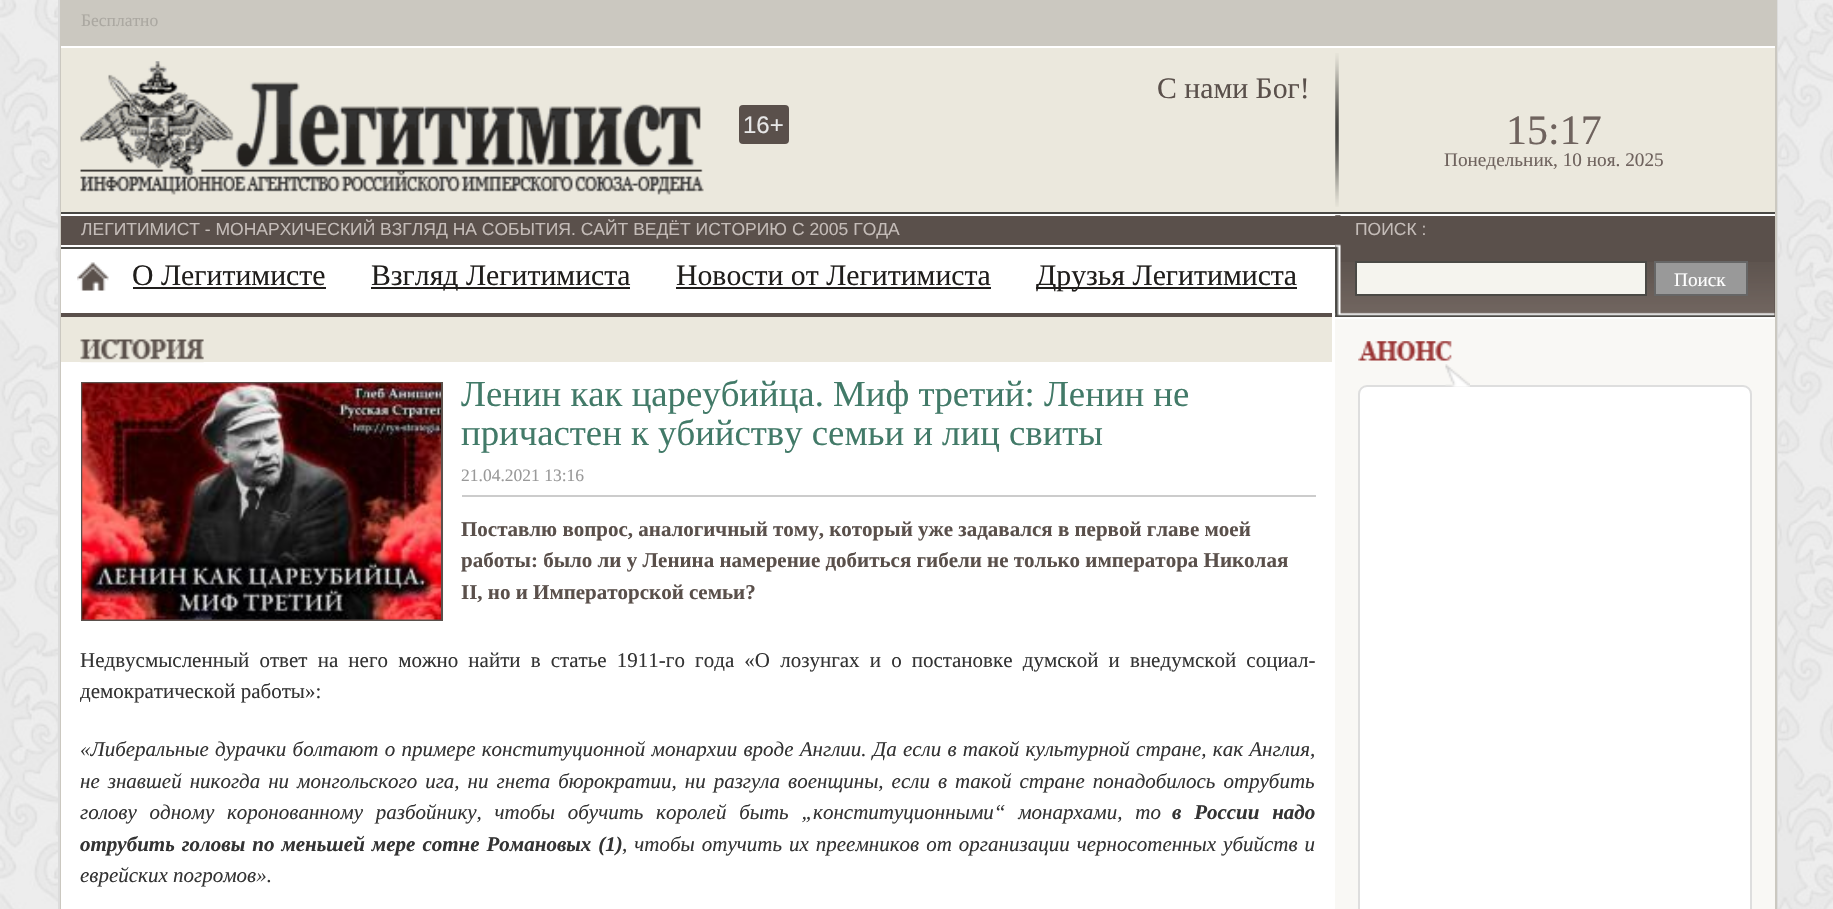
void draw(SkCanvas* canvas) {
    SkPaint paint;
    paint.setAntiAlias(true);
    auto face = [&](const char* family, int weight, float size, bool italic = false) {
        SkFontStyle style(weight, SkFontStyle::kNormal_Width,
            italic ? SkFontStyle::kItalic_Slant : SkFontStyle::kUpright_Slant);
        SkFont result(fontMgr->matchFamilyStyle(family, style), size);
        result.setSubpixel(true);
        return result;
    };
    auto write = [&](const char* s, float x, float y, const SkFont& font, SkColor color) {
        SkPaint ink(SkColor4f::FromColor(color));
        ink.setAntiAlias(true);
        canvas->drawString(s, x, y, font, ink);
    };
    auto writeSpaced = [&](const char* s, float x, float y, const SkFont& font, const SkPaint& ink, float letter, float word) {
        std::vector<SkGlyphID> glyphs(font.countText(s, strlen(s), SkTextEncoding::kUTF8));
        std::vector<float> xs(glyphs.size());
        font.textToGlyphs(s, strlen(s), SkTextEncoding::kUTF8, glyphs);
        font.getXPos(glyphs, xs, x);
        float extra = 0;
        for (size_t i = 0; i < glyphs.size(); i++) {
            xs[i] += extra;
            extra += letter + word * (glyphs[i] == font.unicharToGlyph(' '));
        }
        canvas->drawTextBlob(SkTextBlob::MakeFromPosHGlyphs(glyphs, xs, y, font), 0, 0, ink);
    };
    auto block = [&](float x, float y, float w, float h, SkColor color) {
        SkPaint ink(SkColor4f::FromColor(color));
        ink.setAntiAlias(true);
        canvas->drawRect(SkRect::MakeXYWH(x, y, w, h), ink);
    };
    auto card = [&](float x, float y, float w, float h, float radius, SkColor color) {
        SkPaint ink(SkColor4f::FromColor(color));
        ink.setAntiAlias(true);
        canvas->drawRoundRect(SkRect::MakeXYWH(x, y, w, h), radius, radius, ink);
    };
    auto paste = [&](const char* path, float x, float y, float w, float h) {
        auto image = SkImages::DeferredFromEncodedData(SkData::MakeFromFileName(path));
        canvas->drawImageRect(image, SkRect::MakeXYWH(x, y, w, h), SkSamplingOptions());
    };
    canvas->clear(SK_ColorWHITE);
    paste("pic1.png", 0, 0, 1833, 909);
    block(1777, 0, 1, 909, SkColorSetRGB(220, 220, 220));
    block(58, 0, 2, 909, SkColorSetRGB(220, 220, 220));
    block(60, 0, 1717, 909, SkColorSetRGB(203, 200, 192));
    block(61, 46, 1714, 2, SK_ColorWHITE);
    auto kFont1 = face("Liberation Serif", 400, 17.5f);
    write("Бесплатно", 81, 26, kFont1, SkColorSetRGB(171, 168, 161));
    block(1335, 319, 440, 590, SkColorSetRGB(249, 248, 245));
    block(61, 48, 1714, 164, SkColorSetRGB(235, 232, 221));
    block(61, 212, 1714, 2, SkColorSetRGB(74, 73, 69));
    paste("pic2.png", 80, 61, 624, 134);
    auto kFont2 = face("Liberation Serif", 400, 29.75f);
    write("С нами Бог!", 1157, 98, kFont2, SkColorSetRGB(90, 80, 75));
    card(739, 105, 50, 39, 4, SkColorSetRGB(90, 80, 75));
    auto kFont3 = face("Liberation Sans", 400, 24);
    write("16+", 743, 133, kFont3, SkColorSetRGB(231, 231, 231));
    paste("pic3.png", 1335, 53, 4, 154);
    auto kFont4 = face("Liberation Serif", 400, 42);
    write("15:17", 1506, 144, kFont4, SkColorSetRGB(111, 99, 94));
    auto kFont5 = face("Liberation Serif", 400, 19.25f);
    write("Понедельник, 10 ноя. 2025", 1444, 166, kFont5, SkColorSetRGB(111, 99, 94));
    block(61, 249, 1274, 660, SK_ColorWHITE);
    block(61, 247, 1274, 2, SkColorSetRGB(74, 73, 69));
    block(61, 216, 1274, 29, SkColorSetRGB(90, 80, 75));
    block(61, 214, 1714, 2, SK_ColorWHITE);
    block(61, 245, 1274, 2, SK_ColorWHITE);
    auto kFont6 = face("Liberation Sans", 400, 17.5f);
    write("ЛЕГИТИМИСТ - МОНАРХИЧЕСКИЙ ВЗГЛЯД НА СОБЫТИЯ. САЙТ ВЕДЁТ ИСТОРИЮ С 2005 ГОДА", 81, 235, kFont6, SkColorSetRGB(196, 188, 184));
    paste("pic4.png", 77, 262, 32, 29);
    write("О Легитимисте", 132, 285, kFont2, SkColorSetRGB(32, 30, 28));
    block(133, 287, 193, 2, SkColorSetRGB(32, 30, 28));
    block(371, 287, 259, 2, SkColorSetRGB(32, 30, 28));
    write("Взгляд Легитимиста", 371, 285, kFont2, SkColorSetRGB(32, 30, 28));
    write("Новости от Легитимиста", 676, 285, kFont2, SkColorSetRGB(32, 30, 28));
    block(676, 287, 315, 2, SkColorSetRGB(32, 30, 28));
    block(1036, 287, 261, 2, SkColorSetRGB(32, 30, 28));
    write("Друзья Легитимиста", 1036, 285, kFont2, SkColorSetRGB(32, 30, 28));
    block(61, 317, 1271, 45, SkColorSetRGB(235, 232, 221));
    block(61, 313, 1271, 4, SkColorSetRGB(90, 80, 75));
    paste("pic5.png", 80, 339, 124, 24);
    paint.setStyle(SkPaint::kStroke_Style);
    paint.setStrokeWidth(2);
    paint.setColor(SkColorSetRGB(90, 80, 75));
    canvas->drawRect(SkRect::MakeXYWH(82, 383, 360, 237), paint);
    paste("pic6.png", 82, 383, 359, 237);
    auto kFont7 = face("Liberation Serif", 400, 36.75f);
    write("Ленин как цареубийца. Миф третий: Ленин не", 461, 406, kFont7, SkColorSetRGB(66, 122, 104));
    write("причастен к убийству семьи и лиц свиты", 461, 445, kFont7, SkColorSetRGB(66, 122, 104));
    block(462, 495, 854, 2, SkColorSetRGB(204, 204, 204));
    write("21.04.2021 13:16", 461, 481, kFont1, SkColorSetRGB(153, 153, 153));
    auto kFont8 = face("Liberation Serif", 700, 21);
    write("Поставлю вопрос, аналогичный тому, который уже задавался в первой главе моей", 461, 536, kFont8, SkColorSetRGB(90, 80, 75));
    write("работы: было ли у Ленина намерение добиться гибели не только императора Николая", 461, 567, kFont8, SkColorSetRGB(90, 80, 75));
    write("II, но и Императорской семьи?", 461, 599, kFont8, SkColorSetRGB(90, 80, 75));
    auto kFont9 = face("Liberation Serif", 400, 21);
    paint.setStyle(SkPaint::kFill_Style);
    paint.setColor(SkColorSetRGB(51, 51, 51));
    writeSpaced("Недвусмысленный ответ на него можно найти в статье 1911-го года «О лозунгах и о постановке думской и внедумской социал-", 80, 667, kFont9, paint, 0, 4.9f);
    write("демократической работы»:", 80, 698, kFont9, SkColorSetRGB(51, 51, 51));
    auto kFont10 = face("Liberation Serif", 400, 21, true);
    writeSpaced("«Либеральные дурачки болтают о примере конституционной монархии вроде Англии. Да если в такой культурной стране, как Англия,", 80, 756, kFont10, paint, 0, 1);
    writeSpaced("не знавшей никогда ни монгольского ига, ни гнета бюрократии, ни разгула военщины, если в такой стране понадобилось отрубить", 80, 788, kFont10, paint, 0, 2.75f);
    writeSpaced("голову одному коронованному разбойнику, чтобы обучить королей быть „конституционными“ монархами, то", 80, 819, kFont10, paint, 0, 7.5f);
    auto kFont11 = face("Liberation Serif", 700, 21, true);
    writeSpaced("в России надо", 1172, 819, kFont11, paint, 0, 7.5f);
    writeSpaced("отрубить головы по меньшей мере сотне Романовых (1)", 80, 851, kFont11, paint, 0, 1.75f);
    writeSpaced(", чтобы отучить их преемников от организации черносотенных убийств и", 622, 851, kFont10, paint, 0, 1.75f);
    write("еврейских погромов».", 80, 882, kFont10, SkColorSetRGB(51, 51, 51));
    block(1335, 216, 440, 101, SkColorSetRGB(90, 80, 75));
    paste("pic7.png", 1335, 262, 440, 55);
    block(1335, 317, 440, 2, SK_ColorWHITE);
    paste("pic8.png", 1335, 215, 6, 102);
    write("ПОИСК :", 1355, 235, kFont6, SkColorSetRGB(196, 188, 184));
    paint.setColor(SkColorSetRGB(245, 244, 238));
    canvas->drawRect(SkRect::MakeXYWH(1356, 262, 290, 33), paint);
    paint.setStyle(SkPaint::kStroke_Style);
    paint.setColor(SkColorSetRGB(74, 73, 69));
    canvas->drawRect(SkRect::MakeXYWH(1356, 262, 290, 33), paint);
    paint.setStyle(SkPaint::kFill_Style);
    paint.setColor(SkColorSetRGB(153, 153, 153));
    canvas->drawRect(SkRect::MakeXYWH(1655, 262, 92, 33), paint);
    paint.setStyle(SkPaint::kStroke_Style);
    paint.setColor(SkColorSetRGB(102, 102, 102));
    canvas->drawRect(SkRect::MakeXYWH(1655, 262, 92, 33), paint);
    write("Поиск", 1674, 286, kFont5, SK_ColorWHITE);
    paste("pic9.png", 1358, 341, 94, 20);
    paint.setStyle(SkPaint::kFill_Style);
    paint.setColor(SK_ColorWHITE);
    canvas->drawRoundRect(SkRect::MakeXYWH(1359, 386, 392, 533), 8, 8, paint);
    paint.setStyle(SkPaint::kStroke_Style);
    paint.setColor(SkColorSetRGB(222, 222, 222));
    canvas->drawRoundRect(SkRect::MakeXYWH(1359, 386, 392, 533), 8, 8, paint);
    paste("pic10.png", 1445, 364, 25, 23);
}
